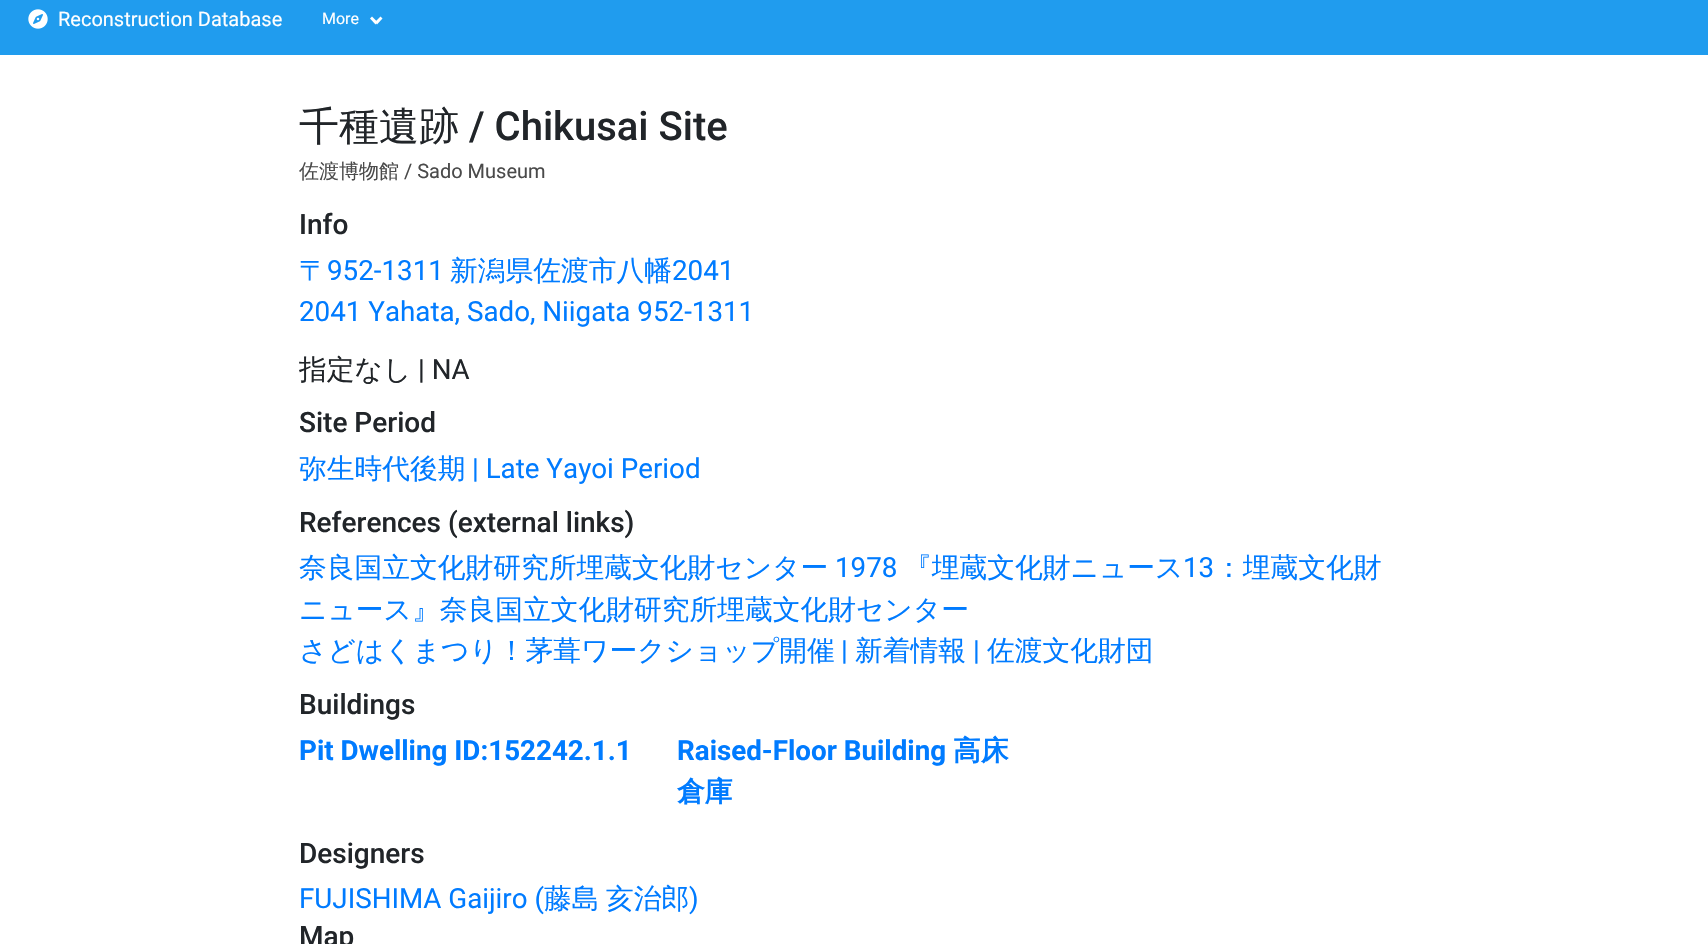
void draw(SkCanvas* canvas) {
    SkPaint paint;
    paint.setAntiAlias(true);
    auto face = [&](const char* family, int weight, float size, bool italic = false) {
        SkFontStyle style(weight, SkFontStyle::kNormal_Width,
            italic ? SkFontStyle::kItalic_Slant : SkFontStyle::kUpright_Slant);
        SkFont result(fontMgr->matchFamilyStyle(family, style), size);
        result.setSubpixel(true);
        return result;
    };
    auto write = [&](const char* s, float x, float y, const SkFont& font, SkColor color) {
        SkPaint ink(SkColor4f::FromColor(color));
        ink.setAntiAlias(true);
        canvas->drawString(s, x, y, font, ink);
    };
    auto block = [&](float x, float y, float w, float h, SkColor color) {
        SkPaint ink(SkColor4f::FromColor(color));
        ink.setAntiAlias(true);
        canvas->drawRect(SkRect::MakeXYWH(x, y, w, h), ink);
    };
    auto paste = [&](const char* path, float x, float y, float w, float h) {
        auto image = SkImages::DeferredFromEncodedData(SkData::MakeFromFileName(path));
        canvas->drawImageRect(image, SkRect::MakeXYWH(x, y, w, h), SkSamplingOptions());
    };
    canvas->clear(SK_ColorWHITE);
    block(0, 0, 1708, 55, SkColorSetRGB(32, 156, 238));
    paste("pic1.png", 28, 9, 20, 20);
    auto kFont1 = face("Roboto", 400, 20);
    write("Reconstruction Database", 58, 26, kFont1, SK_ColorWHITE);
    auto kFont2 = face("Roboto", 400, 16);
    write("More", 322, 24, kFont2, SK_ColorWHITE);
    paint.setColor(SK_ColorWHITE);
    canvas->drawPath(SkPathBuilder().moveTo(375, 22).lineTo(380.5f, 16.5f).lineTo(382.5f, 18.5f).lineTo(377, 24.5f).close().detach(), paint);
    canvas->drawPath(SkPathBuilder().moveTo(370, 18.5f).lineTo(372, 16.5f).lineTo(377.5f, 22).lineTo(375.5f, 24.5f).close().detach(), paint);
    auto kFont3 = face("WenQuanYi Zen Hei", 500, 40);
    write("千種遺跡", 299, 140, kFont3, SkColorSetRGB(33, 37, 41));
    auto kFont4 = face("Roboto", 500, 40);
    write("/ Chikusai Site", 469, 140, kFont4, SkColorSetRGB(33, 37, 41));
    auto kFont5 = face("WenQuanYi Zen Hei", 500, 20);
    write("佐渡博物館", 299, 178, kFont5, SkColorSetRGB(74, 74, 74));
    write("/ Sado Museum", 404, 178, kFont1, SkColorSetRGB(74, 74, 74));
    auto kFont6 = face("Roboto", 500, 28);
    write("Info", 299, 234, kFont6, SkColorSetRGB(33, 37, 41));
    auto kFont7 = face("WenQuanYi Zen Hei", 500, 27.75f);
    write("〒", 299, 280, kFont7, SkColorSetRGB(0, 123, 255));
    auto kFont8 = face("Roboto", 400, 27.75f);
    write("952-1311", 327, 280, kFont8, SkColorSetRGB(0, 123, 255));
    write("新潟県佐渡市八幡", 450, 280, kFont7, SkColorSetRGB(0, 123, 255));
    write("2041", 672, 280, kFont8, SkColorSetRGB(0, 123, 255));
    write("2041 Yahata, Sado, Niigata 952-1311", 299, 321, kFont8, SkColorSetRGB(0, 123, 255));
    write("指定なし", 299, 379, kFont7, SkColorSetRGB(33, 37, 41));
    write("| NA", 418, 379, kFont8, SkColorSetRGB(33, 37, 41));
    write("Site Period", 299, 432, kFont6, SkColorSetRGB(33, 37, 41));
    write("弥生時代後期", 299, 478, kFont7, SkColorSetRGB(0, 123, 255));
    write("| Late Yayoi Period", 472, 478, kFont8, SkColorSetRGB(0, 123, 255));
    write("References (external links)", 299, 532, kFont6, SkColorSetRGB(33, 37, 41));
    write("奈良国立文化財研究所埋蔵文化財センター", 299, 577, kFont7, SkColorSetRGB(0, 123, 255));
    write("1978", 835, 577, kFont8, SkColorSetRGB(0, 123, 255));
    write("『埋蔵文化財ニュース", 904, 577, kFont7, SkColorSetRGB(0, 123, 255));
    write("13", 1183, 577, kFont8, SkColorSetRGB(0, 123, 255));
    write("：埋蔵文化財", 1215, 577, kFont7, SkColorSetRGB(0, 123, 255));
    write("ニュース』奈良国立文化財研究所埋蔵文化財センター", 299, 619, kFont7, SkColorSetRGB(0, 123, 255));
    write("さどはくまつり！茅葺ワークショップ開催", 299, 660, kFont7, SkColorSetRGB(0, 123, 255));
    write("|", 841, 660, kFont8, SkColorSetRGB(0, 123, 255));
    write("新着情報", 855, 660, kFont7, SkColorSetRGB(0, 123, 255));
    write("|", 973, 660, kFont8, SkColorSetRGB(0, 123, 255));
    write("佐渡文化財団", 987, 660, kFont7, SkColorSetRGB(0, 123, 255));
    write("Buildings", 299, 714, kFont6, SkColorSetRGB(33, 37, 41));
    auto kFont9 = face("Roboto", 700, 27.75f);
    write("Pit Dwelling ID:152242.1.1", 299, 760, kFont9, SkColorSetRGB(0, 123, 255));
    write("Raised-Floor Building", 677, 760, kFont9, SkColorSetRGB(0, 123, 255));
    auto kFont10 = face("WenQuanYi Zen Hei", 700, 27.75f);
    write("高床", 953, 760, kFont10, SkColorSetRGB(0, 123, 255));
    write("倉庫", 677, 801, kFont10, SkColorSetRGB(0, 123, 255));
    write("Designers", 299, 863, kFont6, SkColorSetRGB(33, 37, 41));
    write("FUJISHIMA Gaijiro (", 299, 908, kFont8, SkColorSetRGB(0, 123, 255));
    write("藤島", 544, 908, kFont7, SkColorSetRGB(0, 123, 255));
    write("亥治郎", 606, 908, kFont7, SkColorSetRGB(0, 123, 255));
    write(")", 689, 908, kFont8, SkColorSetRGB(0, 123, 255));
    write("Map", 299, 946, kFont6, SkColorSetRGB(33, 37, 41));
}
